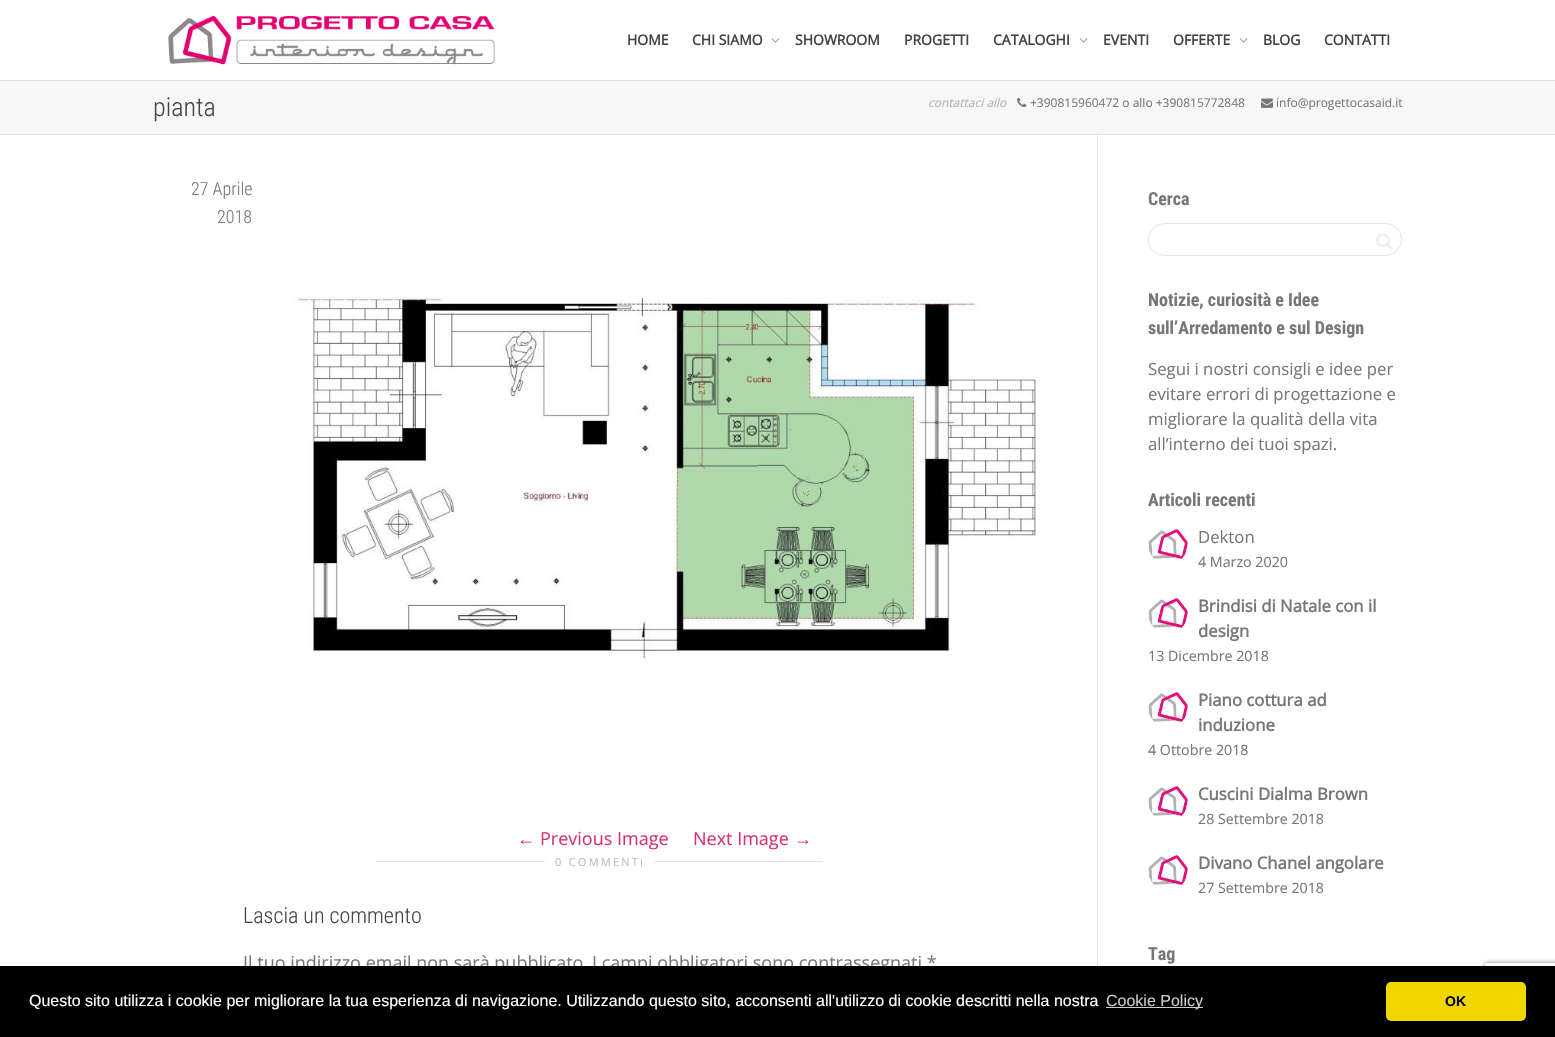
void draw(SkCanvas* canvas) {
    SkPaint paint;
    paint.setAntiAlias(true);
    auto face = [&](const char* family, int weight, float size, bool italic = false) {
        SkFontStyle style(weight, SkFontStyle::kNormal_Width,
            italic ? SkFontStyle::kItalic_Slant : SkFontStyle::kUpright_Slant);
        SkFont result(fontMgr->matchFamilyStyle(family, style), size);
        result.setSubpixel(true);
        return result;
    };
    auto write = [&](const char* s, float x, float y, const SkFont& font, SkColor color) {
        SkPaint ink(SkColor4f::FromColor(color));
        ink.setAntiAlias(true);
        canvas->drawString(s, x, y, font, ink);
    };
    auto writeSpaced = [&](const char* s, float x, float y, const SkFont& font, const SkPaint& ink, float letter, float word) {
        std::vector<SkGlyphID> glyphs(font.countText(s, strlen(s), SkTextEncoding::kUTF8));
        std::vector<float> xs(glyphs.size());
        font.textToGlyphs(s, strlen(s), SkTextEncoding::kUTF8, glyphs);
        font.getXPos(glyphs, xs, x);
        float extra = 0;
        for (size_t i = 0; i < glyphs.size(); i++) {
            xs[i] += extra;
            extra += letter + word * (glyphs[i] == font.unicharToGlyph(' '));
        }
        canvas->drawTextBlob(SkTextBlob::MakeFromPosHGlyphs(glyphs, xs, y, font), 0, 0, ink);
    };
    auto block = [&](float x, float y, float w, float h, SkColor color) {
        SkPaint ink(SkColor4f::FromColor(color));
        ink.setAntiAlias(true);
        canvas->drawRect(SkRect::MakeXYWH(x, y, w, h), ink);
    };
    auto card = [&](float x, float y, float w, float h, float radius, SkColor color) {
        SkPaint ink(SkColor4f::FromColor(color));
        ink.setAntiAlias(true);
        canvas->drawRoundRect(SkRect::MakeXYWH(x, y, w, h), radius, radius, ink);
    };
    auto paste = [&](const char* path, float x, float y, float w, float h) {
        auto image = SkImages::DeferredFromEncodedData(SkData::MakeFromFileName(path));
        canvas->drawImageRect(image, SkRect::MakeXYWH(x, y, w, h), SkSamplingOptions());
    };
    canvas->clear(SK_ColorWHITE);
    block(0, 80, 1555, 1, SkColorSetRGB(229, 229, 229));
    paste("pic1.png", 168, 16, 327, 49);
    auto kFont1 = face("Open Sans", 700, 14);
    write("HOME", 627, 45, kFont1, SkColorSetRGB(68, 68, 68));
    write("CHI SIAMO", 692, 45, kFont1, SkColorSetRGB(68, 68, 68));
    paste("pic2.png", 771, 38, 9, 5);
    write("SHOWROOM", 795, 45, kFont1, SkColorSetRGB(68, 68, 68));
    write("PROGETTI", 904, 45, kFont1, SkColorSetRGB(68, 68, 68));
    write("CATALOGHI", 993, 45, kFont1, SkColorSetRGB(68, 68, 68));
    paste("pic2.png", 1079, 38, 9, 5);
    write("EVENTI", 1103, 45, kFont1, SkColorSetRGB(68, 68, 68));
    write("OFFERTE", 1173, 45, kFont1, SkColorSetRGB(68, 68, 68));
    paste("pic2.png", 1239, 38, 9, 5);
    write("BLOG", 1263, 45, kFont1, SkColorSetRGB(68, 68, 68));
    write("CONTATTI", 1324, 45, kFont1, SkColorSetRGB(68, 68, 68));
    block(0, 81, 1555, 53, SkColorSetRGB(247, 247, 247));
    block(0, 134, 1555, 1, SkColorSetRGB(229, 229, 229));
    auto kFont2 = face("Roboto Condensed", 300, 26);
    write("pianta", 153, 116, kFont2, SkColorSetRGB(68, 68, 68));
    auto kFont3 = face("Open Sans", 400, 12, true);
    write("contattaci allo", 928, 107, kFont3, SkColorSetRGB(179, 179, 179));
    paste("pic3.png", 1017, 97, 10, 11);
    auto kFont4 = face("Open Sans", 400, 12);
    write("+390815960472 o allo +390815772848", 1030, 107, kFont4, SkColorSetRGB(119, 119, 119));
    paste("pic4.png", 1261, 98, 12, 10);
    write("info@progettocasaid.it", 1276, 107, kFont4, SkColorSetRGB(119, 119, 119));
    block(1097, 135, 1, 831, SkColorSetRGB(229, 229, 229));
    auto kFont5 = face("Roboto Condensed", 300, 18);
    write("27 Aprile", 191, 195, kFont5, SkColorSetRGB(119, 119, 119));
    write("2018", 217, 223, kFont5, SkColorSetRGB(119, 119, 119));
    paste("pic5.png", 295, 297, 746, 364);
    auto kFont6 = face("Liberation Serif", 400, 18);
    write("←", 517, 845, kFont6, SkColorSetRGB(213, 51, 120));
    auto kFont7 = face("Open Sans", 400, 18);
    write("Previous Image", 540, 845, kFont7, SkColorSetRGB(213, 51, 120));
    write("Next Image", 693, 845, kFont7, SkColorSetRGB(213, 51, 120));
    write("→", 794, 845, kFont6, SkColorSetRGB(213, 51, 120));
    block(376, 861, 447, 1, SkColorSetRGB(229, 229, 229));
    card(545, 852, 109, 19, 2, SK_ColorWHITE);
    auto kFont8 = face("Open Sans", 400, 11);
    paint.setColor(SkColorSetRGB(187, 187, 187));
    writeSpaced("0 COMMENTI", 555, 866, kFont8, paint, 2.25f, 0);
    auto kFont9 = face("Roboto Condensed", 300, 22);
    write("Lascia un commento", 243, 923, kFont9, SkColorSetRGB(68, 68, 68));
    write("Il tuo indirizzo email non sarà pubblicato", 243, 969, kFont7, SkColorSetRGB(119, 119, 119));
    write("I campi obbligatori sono contrassegnati *", 592, 969, kFont7, SkColorSetRGB(119, 119, 119));
    auto kFont10 = face("Roboto Condensed", 700, 18);
    write("Cerca", 1148, 205, kFont10, SkColorSetRGB(119, 119, 119));
    paint.setStyle(SkPaint::kStroke_Style);
    paint.setStrokeWidth(1);
    paint.setColor(SkColorSetRGB(229, 229, 229));
    canvas->drawRoundRect(SkRect::MakeXYWH(1148.5f, 223.5f, 253, 32), 16, 16, paint);
    paste("pic6.png", 1376, 233, 17, 17);
    write("Notizie, curiosità e Idee", 1148, 306, kFont10, SkColorSetRGB(119, 119, 119));
    write("sull’Arredamento e sul Design", 1148, 334, kFont10, SkColorSetRGB(119, 119, 119));
    auto kFont11 = face("Open Sans", 400, 16.75f);
    write("Segui i nostri consigli e idee per", 1148, 375, kFont11, SkColorSetRGB(119, 119, 119));
    write("evitare errori di progettazione e", 1148, 400, kFont11, SkColorSetRGB(119, 119, 119));
    write("migliorare la qualità della vita", 1148, 425, kFont11, SkColorSetRGB(119, 119, 119));
    write("all’interno dei tuoi spazi.", 1148, 450, kFont11, SkColorSetRGB(119, 119, 119));
    write("Articoli recenti", 1148, 506, kFont10, SkColorSetRGB(119, 119, 119));
    paste("pic7.png", 1148, 529, 40, 30);
    write("Dekton", 1198, 543, kFont11, SkColorSetRGB(119, 119, 119));
    auto kFont12 = face("Open Sans", 400, 14.25f);
    write("4 Marzo 2020", 1198, 567, kFont12, SkColorSetRGB(119, 119, 119));
    paste("pic8.png", 1148, 598, 40, 30);
    auto kFont13 = face("Open Sans", 700, 16.75f);
    write("Brindisi di Natale con il", 1198, 612, kFont13, SkColorSetRGB(119, 119, 119));
    write("design", 1198, 637, kFont13, SkColorSetRGB(119, 119, 119));
    write("13 Dicembre 2018", 1148, 661, kFont12, SkColorSetRGB(119, 119, 119));
    paste("pic8.png", 1148, 692, 40, 30);
    write("Piano cottura ad", 1198, 706, kFont13, SkColorSetRGB(119, 119, 119));
    write("induzione", 1198, 731, kFont13, SkColorSetRGB(119, 119, 119));
    write("4 Ottobre 2018", 1148, 755, kFont12, SkColorSetRGB(119, 119, 119));
    paste("pic9.png", 1148, 786, 40, 30);
    write("Cuscini Dialma Brown", 1198, 800, kFont13, SkColorSetRGB(119, 119, 119));
    write("28 Settembre 2018", 1198, 824, kFont12, SkColorSetRGB(119, 119, 119));
    paste("pic8.png", 1148, 855, 40, 30);
    write("Divano Chanel angolare", 1198, 869, kFont13, SkColorSetRGB(119, 119, 119));
    write("27 Settembre 2018", 1198, 893, kFont12, SkColorSetRGB(119, 119, 119));
    write("Tag", 1148, 960, kFont10, SkColorSetRGB(119, 119, 119));
    canvas->save();
    canvas->clipPath(SkPathBuilder(SkPathFillType::kEvenOdd).moveTo(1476, 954).lineTo(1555, 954).lineTo(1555, 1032).lineTo(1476, 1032).close().moveTo(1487, 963).lineTo(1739, 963).cubicTo(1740, 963, 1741, 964, 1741, 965).lineTo(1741, 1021).cubicTo(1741, 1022, 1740, 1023, 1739, 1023).lineTo(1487, 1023).cubicTo(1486, 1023, 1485, 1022, 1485, 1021).lineTo(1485, 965).cubicTo(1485, 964, 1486, 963, 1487, 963).close().detach(), true);
    paint.setStyle(SkPaint::kFill_Style);
    paint.setColor(SkColorSetRGB(128, 128, 128));
    paint.setMaskFilter(SkMaskFilter::MakeBlur(kNormal_SkBlurStyle, 2.5f));
    canvas->drawRoundRect(SkRect::MakeXYWH(1485, 963, 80, 60), 2, 2, paint);
    paint.setMaskFilter(nullptr);
    canvas->restore();
    block(0, 966, 1555, 71, SK_ColorBLACK);
    auto kFont14 = face("Liberation Sans", 400, 16);
    write("Questo sito utilizza i cookie per migliorare la tua esperienza di navigazione. Utilizzando questo sito, acconsenti all'utilizzo di cookie descritti nella nostra", 29, 1006, kFont14, SK_ColorWHITE);
    block(1106, 1007, 97, 1, SkColorSetRGB(204, 204, 204));
    write("Cookie Policy", 1106, 1006, kFont14, SkColorSetRGB(204, 204, 204));
    card(1386, 982, 140, 39, 5, SkColorSetRGB(241, 214, 0));
    auto kFont15 = face("Liberation Sans", 700, 14);
    write("OK", 1445, 1006, kFont15, SK_ColorBLACK);
}
